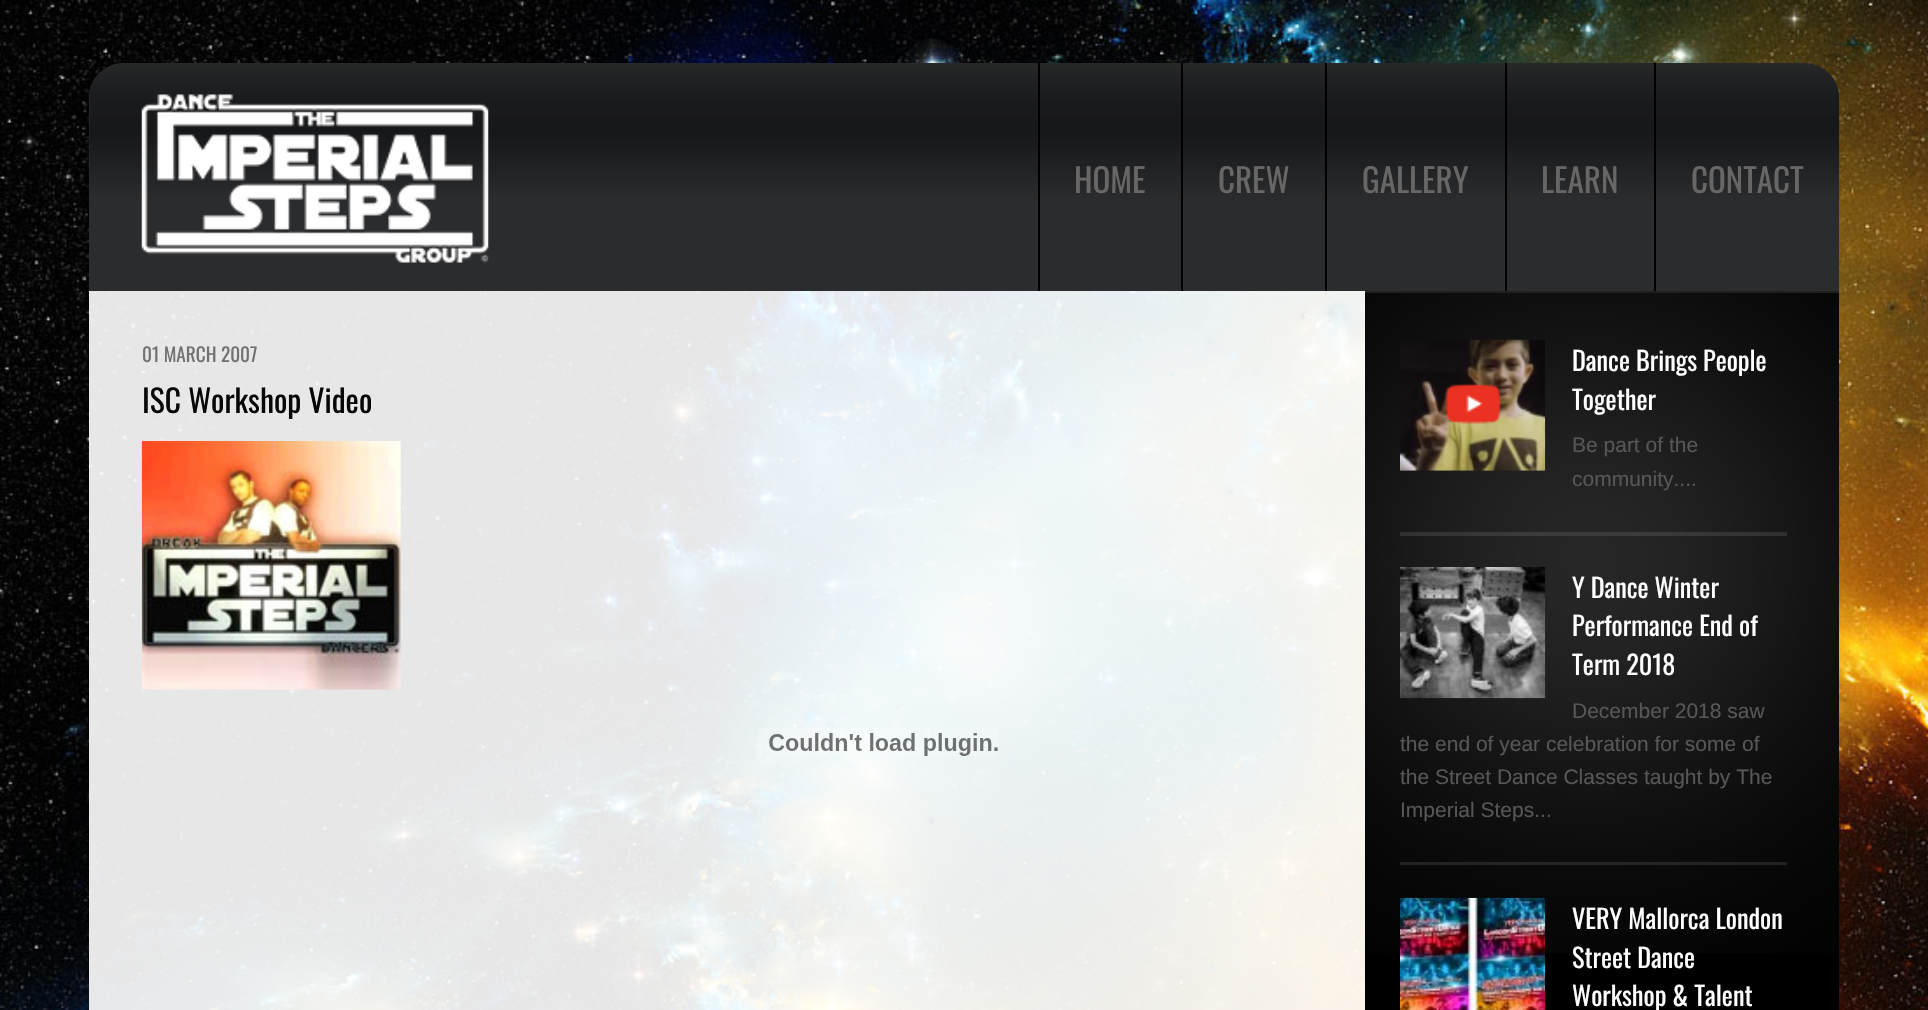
void draw(SkCanvas* canvas) {
    SkPaint paint;
    paint.setAntiAlias(true);
    auto face = [&](const char* family, int weight, float size, bool italic = false) {
        SkFontStyle style(weight, SkFontStyle::kNormal_Width,
            italic ? SkFontStyle::kItalic_Slant : SkFontStyle::kUpright_Slant);
        SkFont result(fontMgr->matchFamilyStyle(family, style), size);
        result.setSubpixel(true);
        return result;
    };
    auto write = [&](const char* s, float x, float y, const SkFont& font, SkColor color) {
        SkPaint ink(SkColor4f::FromColor(color));
        ink.setAntiAlias(true);
        canvas->drawString(s, x, y, font, ink);
    };
    auto block = [&](float x, float y, float w, float h, SkColor color) {
        SkPaint ink(SkColor4f::FromColor(color));
        ink.setAntiAlias(true);
        canvas->drawRect(SkRect::MakeXYWH(x, y, w, h), ink);
    };
    auto paste = [&](const char* path, float x, float y, float w, float h) {
        auto image = SkImages::DeferredFromEncodedData(SkData::MakeFromFileName(path));
        canvas->drawImageRect(image, SkRect::MakeXYWH(x, y, w, h), SkSamplingOptions());
    };
    canvas->clear(SK_ColorWHITE);
    paste("pic1.png", 0, 0, 1928, 1010);
    paint.setColor(SkColorSetRGB(43, 44, 46));
    canvas->drawPath(SkPathBuilder().moveTo(124, 63).lineTo(1804, 63).cubicTo(1823.5f, 63, 1839, 78.5f, 1839, 98).lineTo(1839, 291).lineTo(89, 291).lineTo(89, 98).cubicTo(89, 78.5f, 104.5f, 63, 124, 63).close().detach(), paint);
    paste("pic3.png", 89, 63, 1751, 136);
    paste("pic2.png", 141, 94, 348, 169);
    block(1038, 63, 2, 228, SK_ColorBLACK);
    auto kFont1 = face("Oswald", 400, 33);
    write("HOME", 1074, 193, kFont1, SkColorSetRGB(103, 103, 103));
    block(1181, 63, 2, 228, SK_ColorBLACK);
    write("CREW", 1218, 193, kFont1, SkColorSetRGB(103, 103, 103));
    block(1325, 63, 2, 228, SK_ColorBLACK);
    write("GALLERY", 1362, 193, kFont1, SkColorSetRGB(103, 103, 103));
    block(1505, 63, 2, 228, SK_ColorBLACK);
    write("LEARN", 1541, 193, kFont1, SkColorSetRGB(103, 103, 103));
    block(1654, 63, 2, 228, SK_ColorBLACK);
    write("CONTACT", 1691, 193, kFont1, SkColorSetRGB(103, 103, 103));
    block(89, 291, 1276, 719, SkColorSetARGB(230, 255, 255, 255));
    auto kFont2 = face("Oswald", 400, 19.25f);
    write("01 MARCH 2007", 142, 362, kFont2, SkColorSetRGB(114, 113, 113));
    auto kFont3 = face("Oswald", 400, 31.5f);
    write("ISC Workshop Video", 142, 413, kFont3, SkColorSetRGB(7, 7, 7));
    paste("pic4.png", 141, 441, 260, 249);
    paste("pic5.png", 758, 728, 240, 28);
    block(1365, 293, 474, 717, SK_ColorBLACK);
    paste("pic6.png", 1365, 293, 474, 660);
    block(1365, 291, 474, 2, SkColorSetRGB(32, 32, 32));
    paste("pic7.png", 1400, 339, 146, 132);
    auto kFont4 = face("Oswald", 400, 26.25f);
    write("Dance Brings People", 1572, 371, kFont4, SK_ColorWHITE);
    write("Together", 1572, 410, kFont4, SK_ColorWHITE);
    auto kFont5 = face("Liberation Sans", 400, 21);
    write("Be part of the", 1572, 452, kFont5, SkColorSetRGB(86, 87, 87));
    write("community....", 1572, 486, kFont5, SkColorSetRGB(86, 87, 87));
    block(1400, 532, 387, 4, SkColorSetARGB(26, 255, 255, 255));
    paste("pic8.png", 1400, 567, 146, 132);
    write("Y Dance Winter", 1572, 598, kFont4, SK_ColorWHITE);
    write("Performance End of", 1572, 636, kFont4, SK_ColorWHITE);
    write("Term 2018", 1572, 675, kFont4, SK_ColorWHITE);
    write("December 2018 saw", 1572, 718, kFont5, SkColorSetRGB(86, 87, 87));
    write("the end of year celebration for some of", 1400, 751, kFont5, SkColorSetRGB(86, 87, 87));
    write("the Street Dance Classes taught by The", 1400, 784, kFont5, SkColorSetRGB(86, 87, 87));
    write("Imperial Steps...", 1400, 817, kFont5, SkColorSetRGB(86, 87, 87));
    block(1400, 862, 387, 3, SkColorSetARGB(26, 255, 255, 255));
    paste("pic9.png", 1400, 897, 146, 113);
    write("VERY Mallorca London", 1572, 929, kFont4, SK_ColorWHITE);
    write("Street Dance", 1572, 968, kFont4, SK_ColorWHITE);
    write("Workshop & Talent", 1572, 1006, kFont4, SK_ColorWHITE);
}
